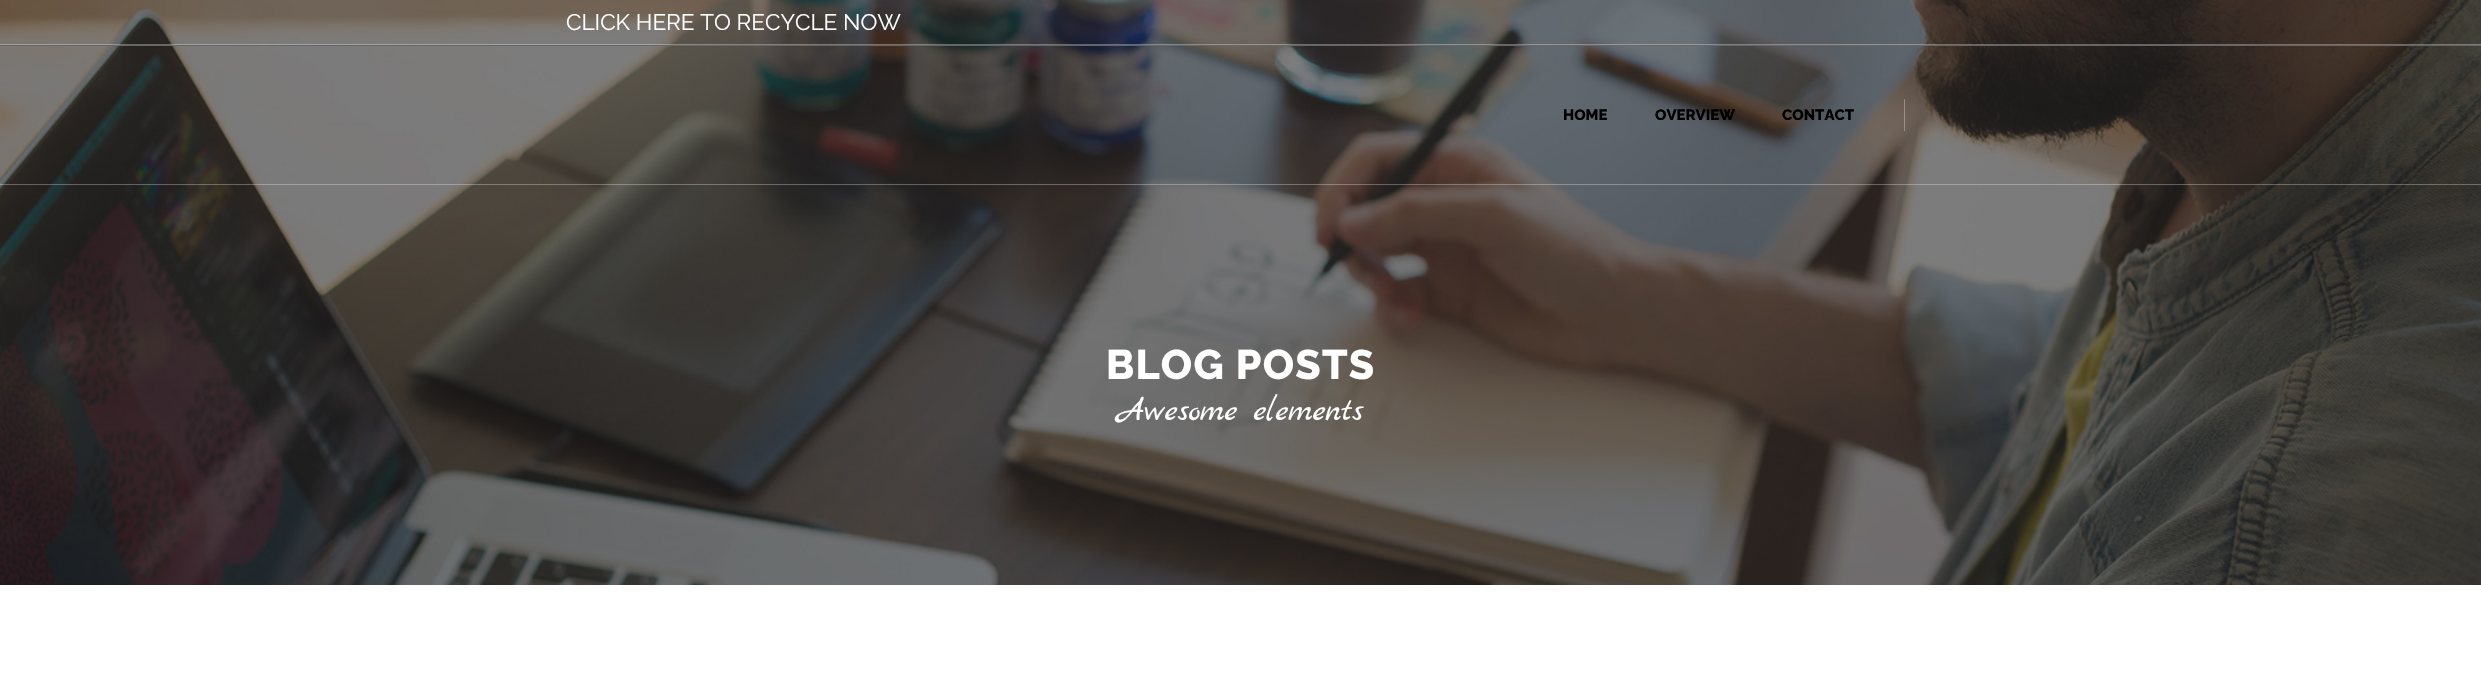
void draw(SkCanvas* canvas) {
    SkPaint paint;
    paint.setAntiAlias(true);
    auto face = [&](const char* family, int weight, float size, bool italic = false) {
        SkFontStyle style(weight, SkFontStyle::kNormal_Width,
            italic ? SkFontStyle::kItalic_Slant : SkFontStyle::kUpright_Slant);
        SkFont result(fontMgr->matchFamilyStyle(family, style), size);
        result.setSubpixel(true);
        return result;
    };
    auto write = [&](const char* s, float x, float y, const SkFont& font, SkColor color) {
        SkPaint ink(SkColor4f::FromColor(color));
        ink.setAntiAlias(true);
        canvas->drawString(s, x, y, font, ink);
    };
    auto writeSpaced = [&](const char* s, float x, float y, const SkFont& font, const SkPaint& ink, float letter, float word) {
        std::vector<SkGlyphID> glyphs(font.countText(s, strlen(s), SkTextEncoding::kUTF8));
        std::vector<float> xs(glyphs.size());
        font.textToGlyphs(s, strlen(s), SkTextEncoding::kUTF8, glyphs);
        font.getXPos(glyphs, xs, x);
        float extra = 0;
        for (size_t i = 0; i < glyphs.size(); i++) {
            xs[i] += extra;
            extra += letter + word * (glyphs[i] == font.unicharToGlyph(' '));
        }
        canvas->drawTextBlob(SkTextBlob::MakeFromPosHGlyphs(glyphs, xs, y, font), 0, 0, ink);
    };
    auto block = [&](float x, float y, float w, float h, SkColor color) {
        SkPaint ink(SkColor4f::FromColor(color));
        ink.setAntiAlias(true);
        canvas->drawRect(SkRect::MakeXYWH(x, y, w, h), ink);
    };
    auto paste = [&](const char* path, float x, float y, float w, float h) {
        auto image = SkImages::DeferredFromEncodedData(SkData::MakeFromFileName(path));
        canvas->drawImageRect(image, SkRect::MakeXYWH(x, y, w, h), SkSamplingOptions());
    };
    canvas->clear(SK_ColorWHITE);
    paste("pic1.png", 0, 0, 2481, 585);
    block(0, 44, 2481, 1, SkColorSetARGB(77, 255, 255, 255));
    auto kFont1 = face("Raleway", 400, 22.5f);
    write("CLICK HERE TO RECYCLE NOW", 566, 30, kFont1, SK_ColorWHITE);
    block(0, 45, 2481, 1, SkColorSetRGB(102, 102, 102));
    block(0, 184, 2481, 1, SkColorSetARGB(77, 250, 250, 250));
    auto kFont2 = face("Raleway", 800, 15);
    write("HOME", 1563, 120, kFont2, SK_ColorBLACK);
    write("OVERVIEW", 1655, 120, kFont2, SK_ColorBLACK);
    write("CONTACT", 1782, 120, kFont2, SK_ColorBLACK);
    block(1904, 99, 1, 32, SkColorSetARGB(77, 255, 255, 255));
    auto kFont3 = face("Raleway", 800, 41.25f);
    paint.setColor(SK_ColorWHITE);
    writeSpaced("BLOG POSTS", 1106, 379, kFont3, paint, 1.25f, 0);
    auto kFont4 = face("Marck Script", 400, 33.75f);
    write("Awesome elements", 1118, 420, kFont4, SK_ColorWHITE);
}
